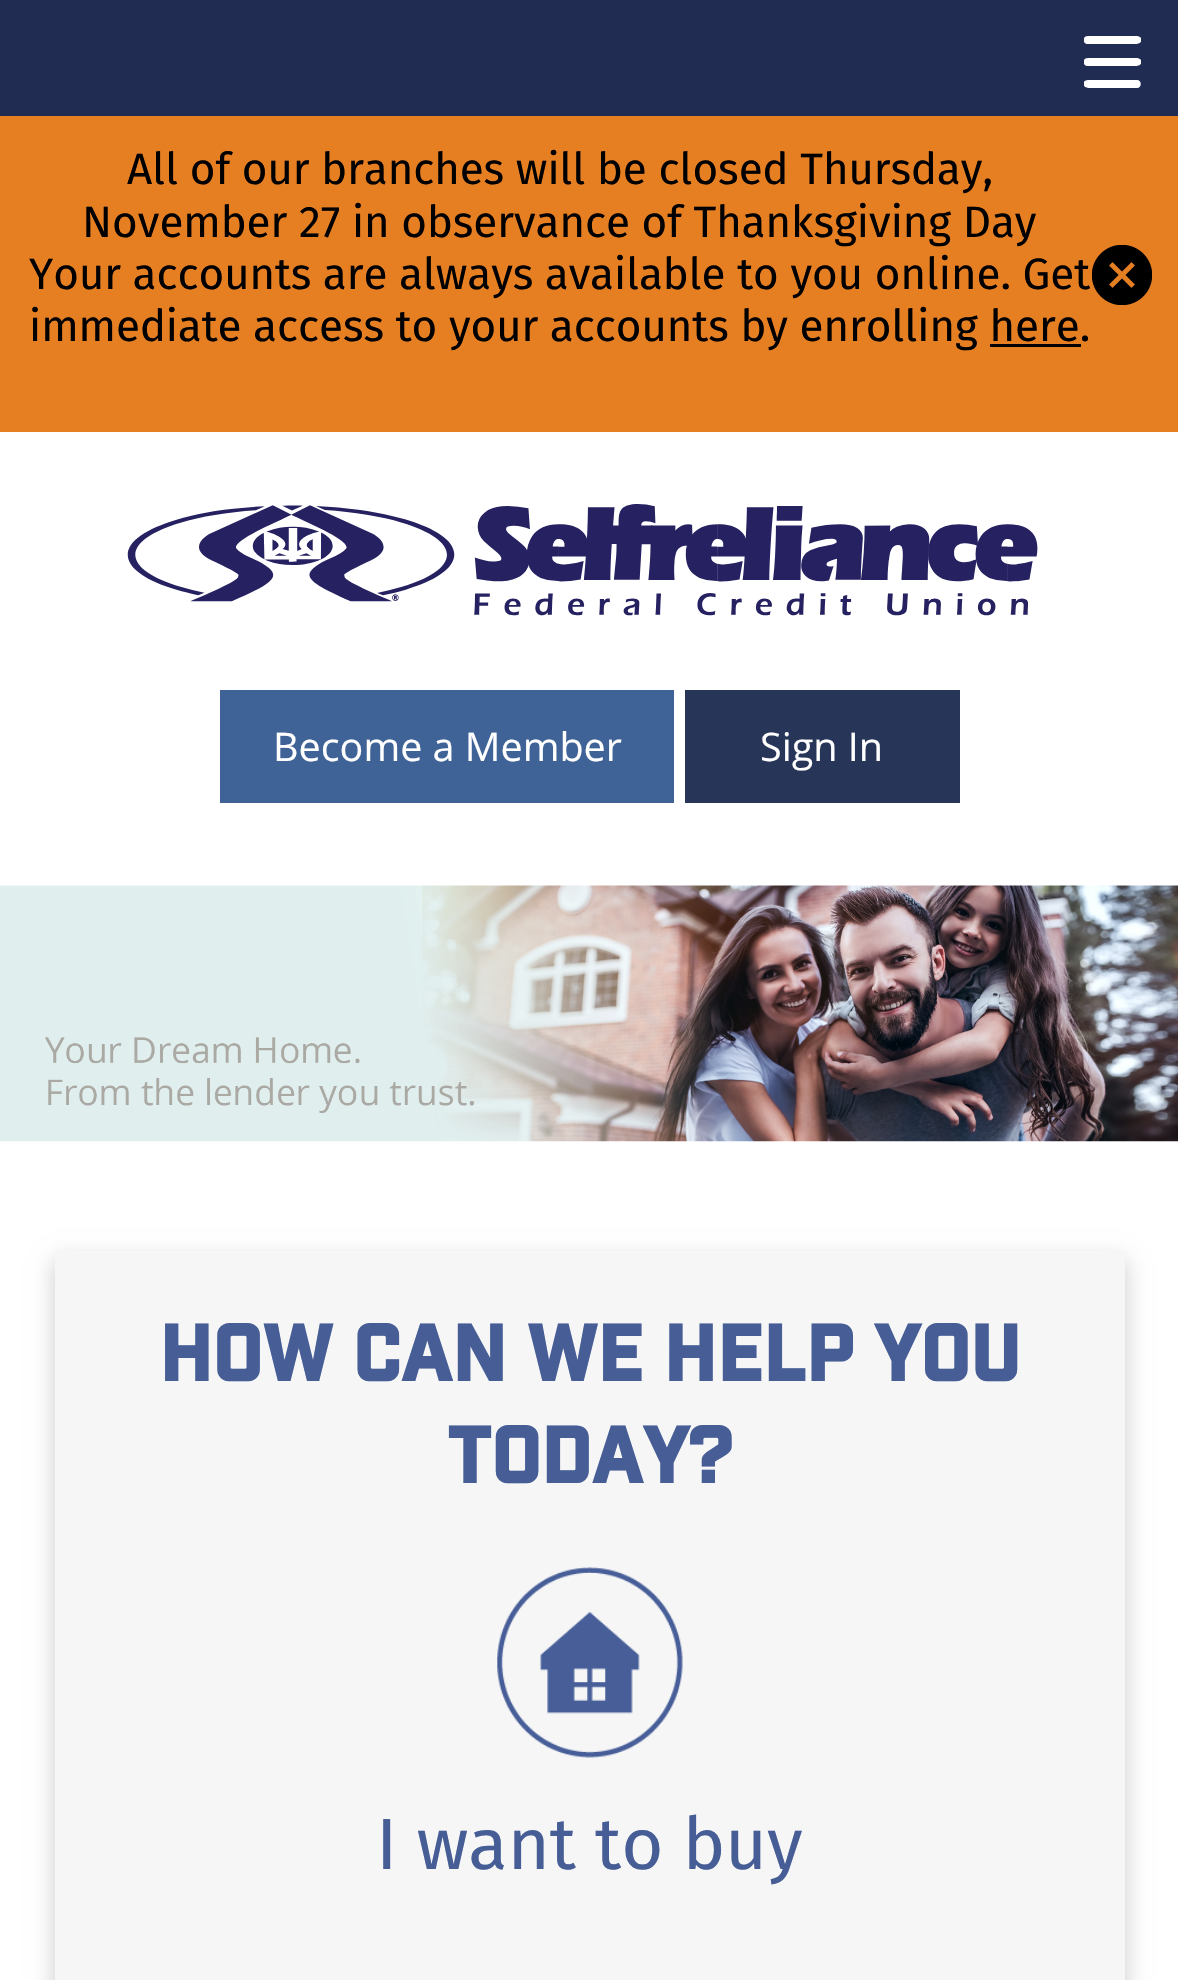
void draw(SkCanvas* canvas) {
    SkPaint paint;
    paint.setAntiAlias(true);
    auto face = [&](const char* family, int weight, float size, bool italic = false) {
        SkFontStyle style(weight, SkFontStyle::kNormal_Width,
            italic ? SkFontStyle::kItalic_Slant : SkFontStyle::kUpright_Slant);
        SkFont result(fontMgr->matchFamilyStyle(family, style), size);
        result.setSubpixel(true);
        return result;
    };
    auto write = [&](const char* s, float x, float y, const SkFont& font, SkColor color) {
        SkPaint ink(SkColor4f::FromColor(color));
        ink.setAntiAlias(true);
        canvas->drawString(s, x, y, font, ink);
    };
    auto block = [&](float x, float y, float w, float h, SkColor color) {
        SkPaint ink(SkColor4f::FromColor(color));
        ink.setAntiAlias(true);
        canvas->drawRect(SkRect::MakeXYWH(x, y, w, h), ink);
    };
    auto paste = [&](const char* path, float x, float y, float w, float h) {
        auto image = SkImages::DeferredFromEncodedData(SkData::MakeFromFileName(path));
        canvas->drawImageRect(image, SkRect::MakeXYWH(x, y, w, h), SkSamplingOptions());
    };
    canvas->clear(SK_ColorWHITE);
    block(0, 0, 1178, 116, SkColorSetRGB(32, 44, 82));
    canvas->save();
    canvas->clipRect(SkRect::MakeXYWH(1084, 36, 57, 8));
    paint.setColor(SK_ColorWHITE);
    canvas->drawPath(SkPathBuilder().moveTo(1088, 36).cubicTo(1082, 36, 1082, 44, 1088, 44).lineTo(1129, 44).cubicTo(1131, 44, 1144, 46, 1141, 38).cubicTo(1140, 37, 1139, 36, 1137, 36).detach(), paint);
    canvas->restore();
    canvas->save();
    canvas->clipRect(SkRect::MakeXYWH(1084, 58, 57, 8));
    canvas->drawPath(SkPathBuilder().moveTo(1088, 58).cubicTo(1082, 58, 1082, 66, 1088, 66).lineTo(1129, 66).cubicTo(1131, 66, 1144, 68, 1141, 60).cubicTo(1140, 59, 1139, 58, 1137, 58).detach(), paint);
    canvas->restore();
    canvas->save();
    canvas->clipRect(SkRect::MakeXYWH(1084, 80, 57, 8));
    canvas->drawPath(SkPathBuilder().moveTo(1088, 80).cubicTo(1086, 80, 1084, 81, 1084, 82).cubicTo(1081, 90, 1094, 88, 1096, 88).lineTo(1137, 88).cubicTo(1142, 88, 1142, 80, 1137, 80).detach(), paint);
    canvas->restore();
    block(0, 116, 1178, 316, SkColorSetRGB(230, 126, 34));
    auto kFont1 = face("Fira Sans", 400, 44);
    write("All of our branches will be closed Thursday,", 127, 184, kFont1, SK_ColorBLACK);
    write("November 27 in observance of Thanksgiving Day", 82, 237, kFont1, SK_ColorBLACK);
    write("Your accounts are always available to you online. Get", 29, 289, kFont1, SK_ColorBLACK);
    write("immediate access to your accounts by enrolling here.", 29, 341, kFont1, SK_ColorBLACK);
    block(990, 344, 91, 3, SK_ColorBLACK);
    paste("pic1.png", 1092, 245, 60, 60);
    paste("pic2.png", 127, 504, 911, 112);
    block(220, 690, 454, 113, SkColorSetRGB(64, 99, 151));
    auto kFont2 = face("Open Sans", 400, 39.5f);
    write("Become a Member", 273, 761, kFont2, SK_ColorWHITE);
    block(685, 690, 275, 113, SkColorSetRGB(39, 53, 88));
    write("Sign In", 760, 761, kFont2, SK_ColorWHITE);
    paste("pic3.png", 0, 885, 1178, 257);
    paint.setColor(SkColorSetRGB(204, 204, 204));
    paint.setMaskFilter(SkMaskFilter::MakeBlur(kNormal_SkBlurStyle, 11));
    canvas->drawRect(SkRect::MakeXYWH(55, 1260, 1070, 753), paint);
    paint.setMaskFilter(nullptr);
    block(55, 1251, 1070, 729, SkColorSetRGB(246, 246, 246));
    auto kFont3 = face("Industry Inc", 700, 77);
    write("How can we help you", 159, 1381, kFont3, SkColorSetRGB(70, 93, 150));
    write("today?", 447, 1483, kFont3, SkColorSetRGB(70, 93, 150));
    paste("pic4.png", 497, 1567, 186, 191);
    auto kFont4 = face("Fira Sans", 400, 72.5f);
    write("I want to buy", 376, 1869, kFont4, SkColorSetRGB(70, 93, 150));
}
